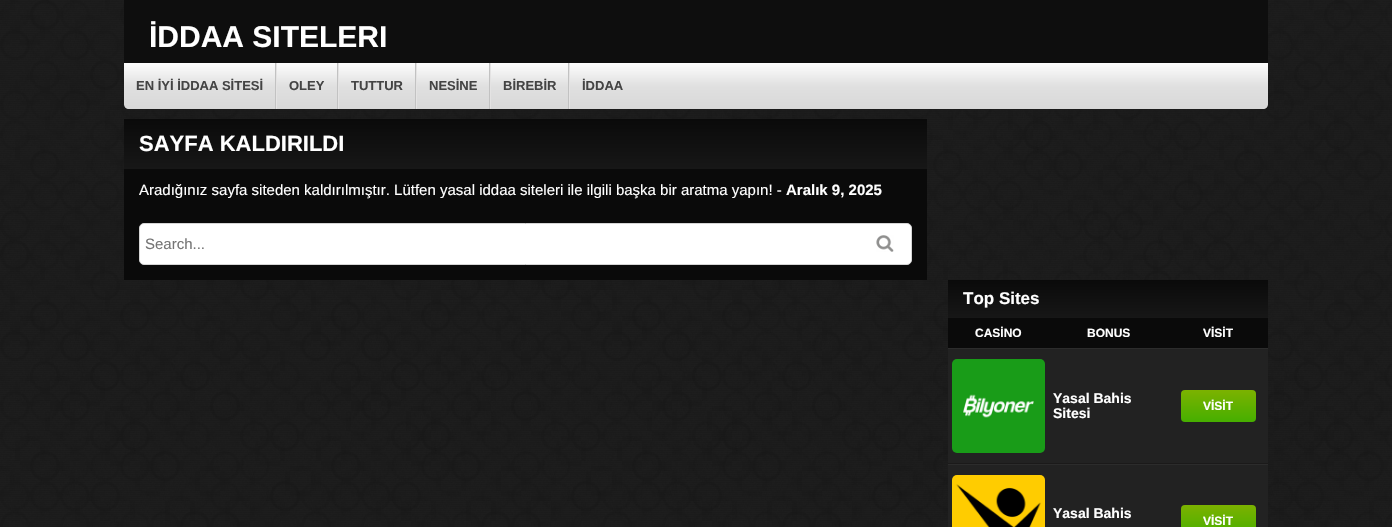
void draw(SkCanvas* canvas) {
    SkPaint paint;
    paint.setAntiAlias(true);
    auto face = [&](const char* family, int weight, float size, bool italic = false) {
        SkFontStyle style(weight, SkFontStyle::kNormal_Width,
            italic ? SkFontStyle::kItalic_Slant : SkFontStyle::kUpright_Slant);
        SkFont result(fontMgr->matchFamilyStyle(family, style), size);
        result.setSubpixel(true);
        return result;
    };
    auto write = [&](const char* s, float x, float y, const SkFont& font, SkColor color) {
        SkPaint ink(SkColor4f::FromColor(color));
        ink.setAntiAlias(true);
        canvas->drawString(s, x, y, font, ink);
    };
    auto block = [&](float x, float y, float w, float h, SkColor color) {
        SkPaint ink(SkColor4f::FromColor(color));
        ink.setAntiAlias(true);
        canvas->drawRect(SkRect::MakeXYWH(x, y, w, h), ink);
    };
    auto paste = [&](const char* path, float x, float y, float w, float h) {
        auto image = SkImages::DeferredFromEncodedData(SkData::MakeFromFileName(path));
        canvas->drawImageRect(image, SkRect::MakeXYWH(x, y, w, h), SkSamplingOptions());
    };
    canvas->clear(SK_ColorWHITE);
    paste("pic1.png", 0, 0, 1392, 527);
    block(124, 0, 1144, 63, SkColorSetRGB(14, 14, 14));
    auto kFont1 = face("Arimo", 700, 30);
    write("İDDAA SITELERI", 149, 47, kFont1, SK_ColorWHITE);
    {
        const SkColor colors[] = {SkColorSetRGB(253, 253, 253), SkColorSetRGB(224, 224, 224), SkColorSetRGB(216, 216, 216)};
        const float stops[] = {0, 0.5f, 1};
        const SkPoint ends[] = {{696, 63}, {696, 109}};
        paint.setShader(SkGradientShader::MakeLinear(ends, colors, stops, 3, SkTileMode::kClamp));
        paint.setAlpha(255);
    }
    canvas->drawPath(SkPathBuilder().moveTo(124, 63).lineTo(1268, 63).lineTo(1268, 104).cubicTo(1268, 107, 1266, 109, 1263, 109).lineTo(129, 109).cubicTo(126, 109, 124, 107, 124, 104).close().detach(), paint);
    block(275, 63, 1, 46, SkColorSetRGB(194, 194, 194));
    auto kFont2 = face("Arimo", 700, 13);
    write("EN İYİ İDDAA SİTESİ", 136, 90, kFont2, SkColorSetRGB(68, 68, 68));
    block(337, 63, 1, 46, SkColorSetRGB(194, 194, 194));
    block(276, 63, 1, 46, SkColorSetRGB(228, 227, 227));
    write("OLEY", 289, 90, kFont2, SkColorSetRGB(68, 68, 68));
    block(415, 63, 1, 46, SkColorSetRGB(194, 194, 194));
    block(338, 63, 1, 46, SkColorSetRGB(228, 227, 227));
    write("TUTTUR", 351, 90, kFont2, SkColorSetRGB(68, 68, 68));
    block(489, 63, 1, 46, SkColorSetRGB(194, 194, 194));
    block(416, 63, 1, 46, SkColorSetRGB(228, 227, 227));
    write("NESİNE", 429, 90, kFont2, SkColorSetRGB(68, 68, 68));
    block(568, 63, 1, 46, SkColorSetRGB(194, 194, 194));
    block(490, 63, 1, 46, SkColorSetRGB(228, 227, 227));
    write("BİREBİR", 503, 90, kFont2, SkColorSetRGB(68, 68, 68));
    block(569, 63, 1, 46, SkColorSetRGB(228, 227, 227));
    write("İDDAA", 582, 90, kFont2, SkColorSetRGB(68, 68, 68));
    block(124, 169, 803, 111, SkColorSetRGB(10, 10, 10));
    {
        const SkColor colors[] = {SkColorSetRGB(10, 10, 10), SkColorSetRGB(23, 23, 23)};
        const float stops[] = {0, 1};
        const SkPoint ends[] = {{526, 119}, {526, 169}};
        paint.setShader(SkGradientShader::MakeLinear(ends, colors, stops, 2, SkTileMode::kClamp));
        paint.setAlpha(255);
    }
    canvas->drawRect(SkRect::MakeXYWH(124, 119, 803, 50), paint);
    auto kFont3 = face("Arimo", 700, 22);
    write("SAYFA KALDIRILDI", 139, 151, kFont3, SK_ColorWHITE);
    auto kFont4 = face("Arimo", 400, 15);
    write("Aradığınız sayfa siteden kaldırılmıştır. Lütfen yasal iddaa siteleri ile ilgili başka bir aratma yapın! -", 139, 195, kFont4, SK_ColorWHITE);
    auto kFont5 = face("Arimo", 700, 15);
    write("Aralık 9, 2025", 786, 195, kFont5, SK_ColorWHITE);
    paint.setShader(nullptr);
    paint.setColor(SK_ColorWHITE);
    canvas->drawRoundRect(SkRect::MakeXYWH(139.5f, 223.5f, 772, 41), 4.5f, 4.5f, paint);
    paint.setStyle(SkPaint::kStroke_Style);
    paint.setStrokeWidth(1);
    paint.setColor(SkColorSetRGB(213, 213, 213));
    canvas->drawRoundRect(SkRect::MakeXYWH(139.5f, 223.5f, 772, 41), 4.5f, 4.5f, paint);
    write("Search...", 145, 249, kFont4, SkColorSetRGB(117, 117, 117));
    paste("pic2.png", 876, 235, 18, 17);
    block(948, 349, 320, 178, SkColorSetRGB(34, 34, 34));
    paint.setStyle(SkPaint::kFill_Style);
    {
        const SkColor colors[] = {SkColorSetRGB(10, 10, 10), SkColorSetRGB(23, 23, 23)};
        const float stops[] = {0, 1};
        const SkPoint ends[] = {{1108, 280}, {1108, 318}};
        paint.setShader(SkGradientShader::MakeLinear(ends, colors, stops, 2, SkTileMode::kClamp));
        paint.setAlpha(255);
    }
    canvas->drawRect(SkRect::MakeXYWH(948, 280, 320, 38), paint);
    auto kFont6 = face("Arimo", 700, 17);
    write("Top Sites", 963, 304, kFont6, SK_ColorWHITE);
    block(948, 318, 320, 30, SkColorSetRGB(10, 10, 10));
    auto kFont7 = face("Arimo", 700, 12);
    write("CASİNO", 975, 337, kFont7, SK_ColorWHITE);
    write("BONUS", 1087, 337, kFont7, SK_ColorWHITE);
    write("VİSİT", 1203, 337, kFont7, SK_ColorWHITE);
    block(948, 348, 320, 1, SkColorSetRGB(44, 44, 44));
    block(948, 463, 320, 1, SkColorSetRGB(27, 26, 26));
    paste("pic3.png", 952, 359, 93, 94);
    auto kFont8 = face("Arimo", 700, 14);
    write("Yasal Bahis", 1053, 403, kFont8, SK_ColorWHITE);
    write("Sitesi", 1053, 418, kFont8, SK_ColorWHITE);
    {
        const SkColor colors[] = {SkColorSetRGB(124, 178, 0), SkColorSetRGB(70, 175, 0)};
        const float stops[] = {0, 1};
        const SkPoint ends[] = {{1219, 390}, {1219, 422}};
        paint.setShader(SkGradientShader::MakeLinear(ends, colors, stops, 2, SkTileMode::kClamp));
        paint.setAlpha(255);
    }
    canvas->drawRoundRect(SkRect::MakeXYWH(1181, 390, 75, 32), 4, 4, paint);
    write("VİSİT", 1203, 410, kFont7, SK_ColorWHITE);
    block(948, 464, 320, 1, SkColorSetRGB(44, 44, 44));
    paste("pic4.png", 952, 475, 93, 52);
    write("Yasal Bahis", 1053, 518, kFont8, SK_ColorWHITE);
    {
        const SkColor colors[] = {SkColorSetRGB(124, 178, 0), SkColorSetRGB(70, 175, 0)};
        const float stops[] = {0, 1};
        const SkPoint ends[] = {{1219, 505}, {1219, 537}};
        paint.setShader(SkGradientShader::MakeLinear(ends, colors, stops, 2, SkTileMode::kClamp));
        paint.setAlpha(255);
    }
    canvas->drawRoundRect(SkRect::MakeXYWH(1181, 505, 75, 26), 4, 4, paint);
    write("VİSİT", 1203, 525, kFont7, SK_ColorWHITE);
}
